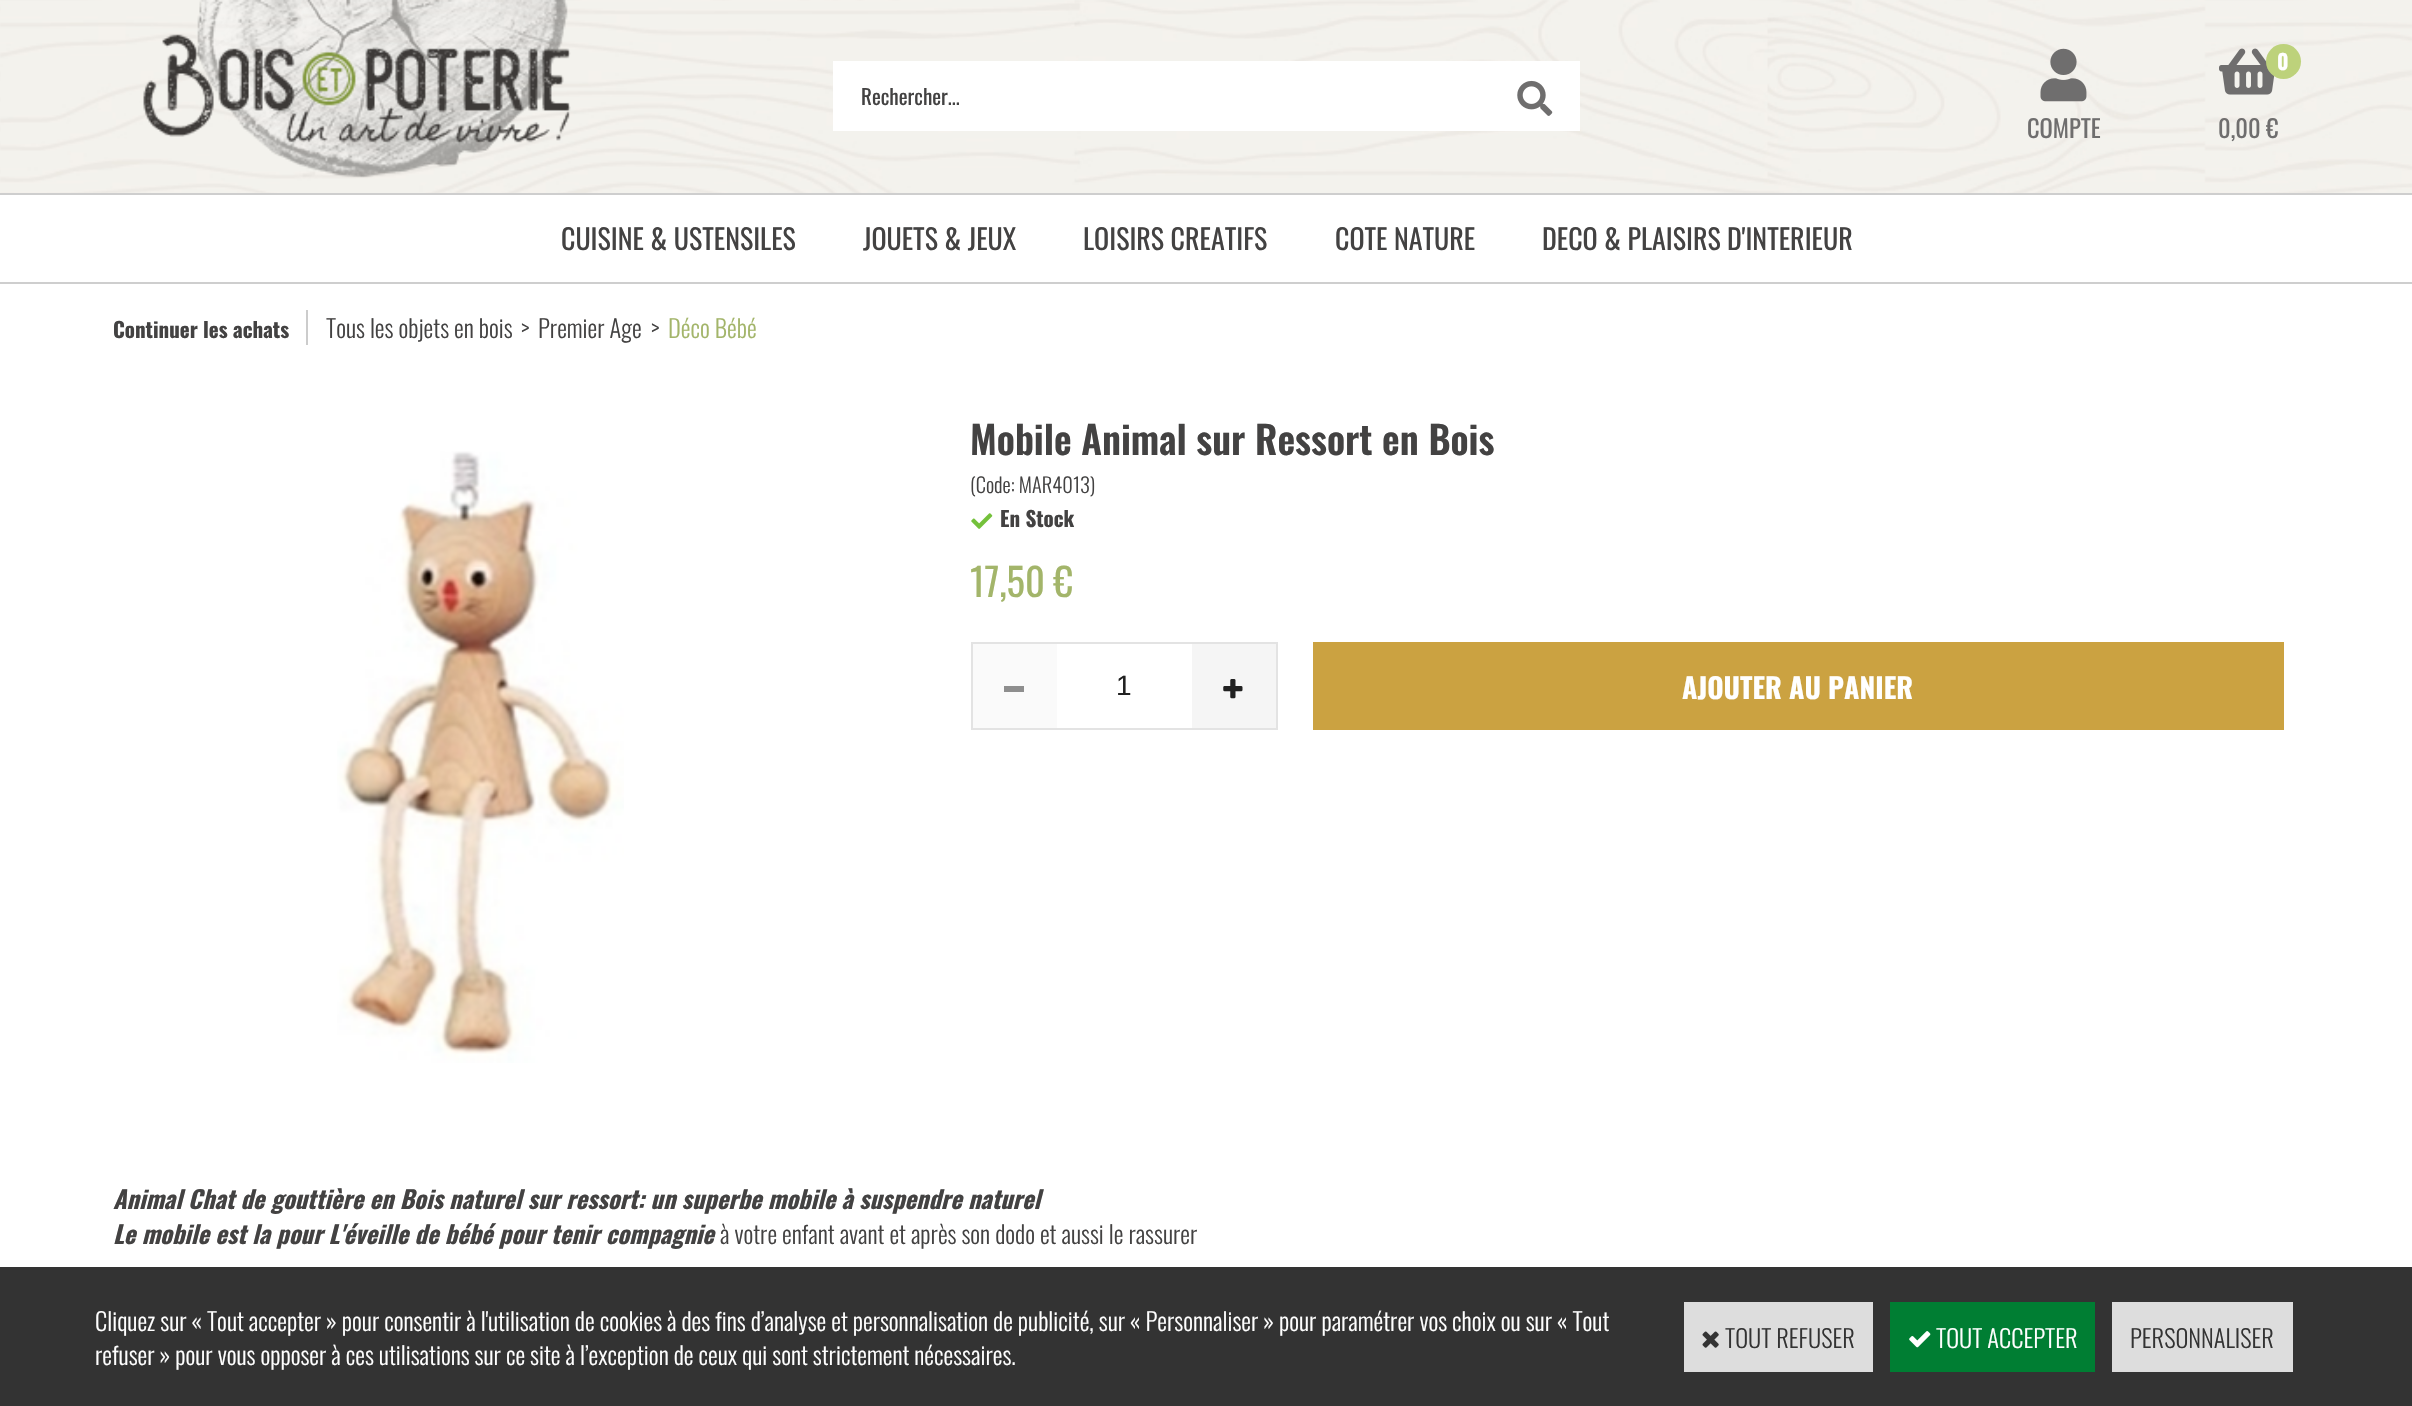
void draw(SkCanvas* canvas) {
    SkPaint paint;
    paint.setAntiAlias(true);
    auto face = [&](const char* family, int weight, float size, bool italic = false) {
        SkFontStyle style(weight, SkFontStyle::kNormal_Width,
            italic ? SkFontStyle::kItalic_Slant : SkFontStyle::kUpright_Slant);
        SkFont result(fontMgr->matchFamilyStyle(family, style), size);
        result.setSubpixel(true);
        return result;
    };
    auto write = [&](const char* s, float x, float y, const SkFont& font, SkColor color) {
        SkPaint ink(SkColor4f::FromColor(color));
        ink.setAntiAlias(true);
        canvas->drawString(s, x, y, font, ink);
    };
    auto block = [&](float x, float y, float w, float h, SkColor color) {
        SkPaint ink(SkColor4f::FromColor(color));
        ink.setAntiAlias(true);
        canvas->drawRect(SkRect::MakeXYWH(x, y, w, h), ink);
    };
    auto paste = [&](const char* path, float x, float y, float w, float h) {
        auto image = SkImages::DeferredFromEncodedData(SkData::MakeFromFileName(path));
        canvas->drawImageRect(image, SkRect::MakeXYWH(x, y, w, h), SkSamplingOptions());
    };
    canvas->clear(SK_ColorWHITE);
    paste("pic1.png", 0, 0, 2412, 193);
    paste("pic2.png", 143, 0, 428, 178);
    block(833, 61, 747, 70, SK_ColorWHITE);
    auto kFont1 = face("Oswald", 400, 21);
    write("Rechercher...", 861, 105, kFont1, SkColorSetRGB(67, 66, 66));
    paste("pic3.png", 1517, 80, 36, 36);
    paste("pic4.png", 2040, 48, 47, 54);
    auto kFont2 = face("Oswald", 400, 24.5f);
    write("COMPTE", 2027, 138, kFont2, SkColorSetRGB(111, 110, 110));
    paste("pic5.png", 2219, 48, 56, 47);
    paint.setColor(SkColorSetRGB(189, 210, 123));
    canvas->drawCircle(2283.5f, 61.5f, 17.5f, paint);
    auto kFont3 = face("Oswald", 700, 21);
    write("0", 2277, 70, kFont3, SK_ColorWHITE);
    write("0,00 €", 2218, 138, kFont2, SkColorSetRGB(111, 110, 110));
    block(0, 193, 2412, 2, SkColorSetRGB(206, 206, 206));
    block(0, 282, 2412, 2, SkColorSetRGB(206, 206, 206));
    auto kFont4 = face("Oswald", 400, 28);
    write("CUISINE & USTENSILES", 561, 250, kFont4, SkColorSetRGB(67, 66, 66));
    write("JOUETS & JEUX", 863, 250, kFont4, SkColorSetRGB(67, 66, 66));
    write("LOISIRS CREATIFS", 1083, 250, kFont4, SkColorSetRGB(67, 66, 66));
    write("COTE NATURE", 1335, 250, kFont4, SkColorSetRGB(67, 66, 66));
    write("DECO & PLAISIRS D'INTERIEUR", 1542, 250, kFont4, SkColorSetRGB(67, 66, 66));
    write("Continuer les achats", 113, 338, kFont3, SkColorSetRGB(67, 66, 66));
    block(306, 310, 2, 35, SkColorSetRGB(204, 204, 204));
    auto kFont5 = face("Oswald", 300, 24.5f);
    write("Tous les objets en bois", 326, 338, kFont5, SkColorSetRGB(67, 66, 66));
    write(">", 521, 338, kFont5, SkColorSetRGB(67, 66, 66));
    write("Premier Age", 538, 338, kFont5, SkColorSetRGB(67, 66, 66));
    write(">", 651, 338, kFont5, SkColorSetRGB(67, 66, 66));
    write("Déco Bébé", 668, 338, kFont5, SkColorSetRGB(163, 181, 106));
    paste("pic6.png", 337, 451, 287, 612);
    auto kFont6 = face("Oswald", 600, 38.5f);
    write("Mobile Animal sur Ressort en Bois", 970, 455, kFont6, SkColorSetRGB(67, 66, 66));
    auto kFont7 = face("Oswald", 300, 20.5f);
    write("(Code: MAR4013)", 970, 493, kFont7, SkColorSetRGB(67, 66, 66));
    paste("pic7.png", 971, 513, 22, 16);
    write("En Stock", 1000, 527, kFont3, SkColorSetRGB(67, 66, 66));
    auto kFont8 = face("Oswald", 400, 38.5f);
    write("17,50 €", 970, 597, kFont8, SkColorSetRGB(163, 181, 106));
    paint.setStyle(SkPaint::kStroke_Style);
    paint.setStrokeWidth(2);
    paint.setColor(SkColorSetRGB(227, 227, 227));
    canvas->drawRect(SkRect::MakeXYWH(972, 643, 305, 86), paint);
    block(973, 644, 84, 84, SkColorSetRGB(250, 250, 250));
    block(1004, 686, 20, 6, SkColorSetRGB(142, 142, 142));
    auto kFont9 = face("Liberation Sans", 400, 28);
    write("1", 1116, 695, kFont9, SkColorSetRGB(33, 33, 33));
    block(1192, 644, 84, 84, SkColorSetRGB(245, 245, 245));
    paste("pic8.png", 1223, 679, 20, 20);
    block(1313, 642, 971, 88, SkColorSetRGB(203, 162, 65));
    auto kFont10 = face("Oswald", 700, 28);
    write("AJOUTER AU PANIER", 1682, 699, kFont10, SK_ColorWHITE);
    auto kFont11 = face("Oswald", 700, 24.5f, true);
    write("Animal Chat de gouttière en Bois naturel sur ressort: un superbe mobile à suspendre naturel", 113, 1209, kFont11, SkColorSetRGB(67, 66, 66));
    write("Le mobile est la pour L'éveille de bébé pour tenir compagnie", 113, 1244, kFont11, SkColorSetRGB(67, 66, 66));
    write("à votre enfant avant et après son dodo et aussi le rassurer", 720, 1244, kFont5, SkColorSetRGB(67, 66, 66));
    block(0, 1267, 2412, 139, SkColorSetRGB(51, 51, 51));
    write("Cliquez sur « Tout accepter » pour consentir à l'utilisation de cookies à des fins d’analyse et personnalisation de publicité, sur « Personnaliser » pour paramétrer vos choix ou sur « Tout", 95, 1331, kFont5, SK_ColorWHITE);
    write("refuser » pour vous opposer à ces utilisations sur ce site à l’exception de ceux qui sont strictement nécessaires.", 95, 1365, kFont5, SK_ColorWHITE);
    block(1684, 1302, 189, 70, SkColorSetRGB(221, 221, 221));
    paste("pic9.png", 1702, 1331, 17, 17);
    write("TOUT REFUSER", 1725, 1348, kFont5, SkColorSetRGB(51, 51, 51));
    block(1890, 1302, 205, 70, SkColorSetRGB(0, 126, 51));
    paste("pic10.png", 1909, 1331, 22, 17);
    write("TOUT ACCEPTER", 1936, 1348, kFont5, SK_ColorWHITE);
    block(2112, 1302, 181, 70, SkColorSetRGB(221, 221, 221));
    write("PERSONNALISER", 2130, 1348, kFont5, SkColorSetRGB(51, 51, 51));
}
